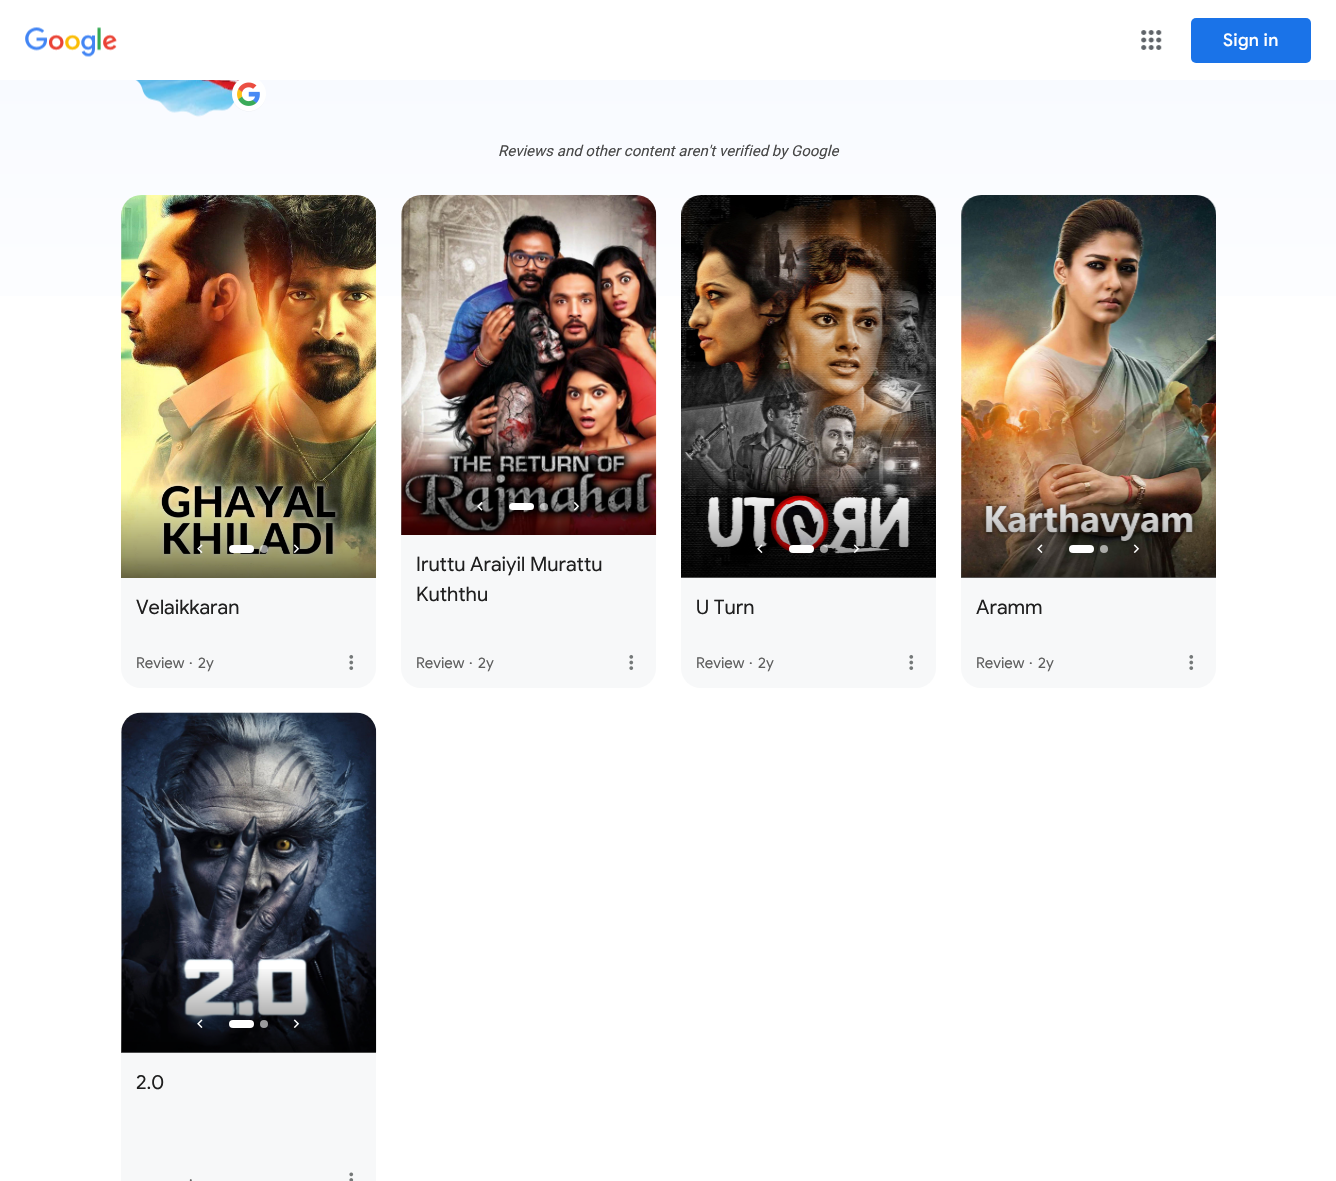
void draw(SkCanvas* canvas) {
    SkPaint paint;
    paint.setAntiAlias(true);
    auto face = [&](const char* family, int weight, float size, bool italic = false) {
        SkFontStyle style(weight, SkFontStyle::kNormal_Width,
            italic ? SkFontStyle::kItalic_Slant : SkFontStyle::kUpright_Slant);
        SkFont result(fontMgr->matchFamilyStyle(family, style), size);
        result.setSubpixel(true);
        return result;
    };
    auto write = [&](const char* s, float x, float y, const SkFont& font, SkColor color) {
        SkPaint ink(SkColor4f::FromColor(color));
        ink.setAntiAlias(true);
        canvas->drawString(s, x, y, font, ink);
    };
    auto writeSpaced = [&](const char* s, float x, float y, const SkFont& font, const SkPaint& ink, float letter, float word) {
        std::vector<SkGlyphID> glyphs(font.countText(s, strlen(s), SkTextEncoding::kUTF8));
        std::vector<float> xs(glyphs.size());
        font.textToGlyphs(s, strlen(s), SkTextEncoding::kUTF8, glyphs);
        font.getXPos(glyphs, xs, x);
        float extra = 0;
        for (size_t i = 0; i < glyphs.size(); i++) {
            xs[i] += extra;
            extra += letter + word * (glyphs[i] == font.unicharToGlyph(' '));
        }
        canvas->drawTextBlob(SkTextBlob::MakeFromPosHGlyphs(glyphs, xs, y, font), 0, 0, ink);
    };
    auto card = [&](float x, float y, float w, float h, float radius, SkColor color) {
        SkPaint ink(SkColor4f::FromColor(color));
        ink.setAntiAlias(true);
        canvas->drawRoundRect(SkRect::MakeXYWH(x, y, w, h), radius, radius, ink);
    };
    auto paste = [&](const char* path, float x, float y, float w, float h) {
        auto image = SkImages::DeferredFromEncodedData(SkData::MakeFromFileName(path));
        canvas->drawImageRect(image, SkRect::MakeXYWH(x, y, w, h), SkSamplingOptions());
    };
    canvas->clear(SK_ColorWHITE);
    paste("pic1.png", 25, 27, 92, 30);
    paste("pic2.png", 1141, 30, 21, 20);
    card(1191, 18, 120, 45, 5, SkColorSetRGB(26, 115, 232));
    auto kFont1 = face("Google Sans", 500, 17.5f);
    paint.setColor(SK_ColorWHITE);
    writeSpaced("Sign in", 1223, 46, kFont1, paint, 0.25f, 0);
    {
        const SkColor colors[] = {SkColorSetRGB(245, 248, 255), SK_ColorWHITE};
        const float stops[] = {0, 1};
        const SkPoint ends[] = {{668, -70}, {668, 418}};
        paint.setShader(SkGradientShader::MakeLinear(ends, colors, stops, 2, SkTileMode::kClamp));
        paint.setAlpha(255);
    }
    canvas->drawRect(SkRect::MakeXYWH(0, 80, 1336, 216), paint);
    paste("pic3.png", 135, 80, 105, 37);
    paste("pic4.png", 232, 80, 34, 32);
    auto kFont2 = face("Roboto", 400, 15, true);
    write("Reviews and other content aren't verified by Google", 498, 156, kFont2, SkColorSetRGB(71, 71, 71));
    card(121, 195, 255, 493, 20, SkColorSetRGB(247, 248, 249));
    paste("pic5.png", 121, 195, 256, 383);
    paste("pic6.png", 197, 544, 6, 9);
    card(229, 545, 25, 8, 4, SK_ColorWHITE);
    paint.setShader(nullptr);
    paint.setColor(SkColorSetARGB(153, 255, 255, 255));
    canvas->drawCircle(264, 549, 4, paint);
    paste("pic7.png", 293, 544, 7, 9);
    auto kFont3 = face("Google Sans", 400, 20);
    write("Velaikkaran", 136, 614, kFont3, SkColorSetRGB(31, 31, 31));
    auto kFont4 = face("Google Sans", 400, 15);
    write("Review", 136, 668, kFont4, SkColorSetRGB(94, 94, 94));
    write("·", 189, 668, kFont4, SkColorSetRGB(94, 94, 94));
    write("2y", 198, 668, kFont4, SkColorSetRGB(94, 94, 94));
    paste("pic8.png", 349, 655, 5, 15);
    card(401, 195, 255, 493, 20, SkColorSetRGB(247, 248, 249));
    paste("pic9.png", 401, 195, 256, 340);
    {
        const SkColor colors[] = {SkColorSetARGB(0, 0, 0, 0), SkColorSetARGB(102, 0, 0, 0), SkColorSetARGB(153, 0, 0, 0)};
        const float stops[] = {0, 0.75f, 1};
        const SkPoint ends[] = {{529, 448}, {529, 535}};
        paint.setShader(SkGradientShader::MakeLinear(ends, colors, stops, 3, SkTileMode::kClamp));
        paint.setAlpha(255);
    }
    canvas->drawRect(SkRect::MakeXYWH(401, 452, 255, 83), paint);
    paste("pic10.png", 477, 502, 6, 9);
    card(509, 503, 25, 7, 3.5f, SK_ColorWHITE);
    card(540, 503, 8, 7, 3.5f, SkColorSetARGB(153, 255, 255, 255));
    paste("pic11.png", 573, 502, 7, 9);
    write("Iruttu Araiyil Murattu", 416, 571, kFont3, SkColorSetRGB(31, 31, 31));
    write("Kuththu", 416, 601, kFont3, SkColorSetRGB(31, 31, 31));
    write("Review", 416, 668, kFont4, SkColorSetRGB(94, 94, 94));
    write("·", 469, 668, kFont4, SkColorSetRGB(94, 94, 94));
    write("2y", 478, 668, kFont4, SkColorSetRGB(94, 94, 94));
    paste("pic8.png", 629, 655, 5, 15);
    card(681, 195, 255, 493, 20, SkColorSetRGB(247, 248, 249));
    paste("pic12.png", 681, 195, 255, 383);
    {
        const SkColor colors[] = {SkColorSetARGB(0, 0, 0, 0), SkColorSetARGB(102, 0, 0, 0), SkColorSetARGB(153, 0, 0, 0)};
        const float stops[] = {0, 0.75f, 1};
        const SkPoint ends[] = {{809, 490}, {809, 578}};
        paint.setShader(SkGradientShader::MakeLinear(ends, colors, stops, 3, SkTileMode::kClamp));
        paint.setAlpha(255);
    }
    canvas->drawRect(SkRect::MakeXYWH(681, 494, 255, 84), paint);
    paste("pic13.png", 757, 544, 6, 9);
    card(789, 545, 25, 8, 4, SK_ColorWHITE);
    paint.setShader(nullptr);
    paint.setColor(SkColorSetARGB(153, 255, 255, 255));
    canvas->drawCircle(824, 549, 4, paint);
    paste("pic14.png", 853, 544, 6, 9);
    write("U Turn", 696, 614, kFont3, SkColorSetRGB(31, 31, 31));
    write("Review", 696, 668, kFont4, SkColorSetRGB(94, 94, 94));
    write("·", 749, 668, kFont4, SkColorSetRGB(94, 94, 94));
    write("2y", 758, 668, kFont4, SkColorSetRGB(94, 94, 94));
    paste("pic8.png", 909, 655, 5, 15);
    card(961, 195, 255, 493, 20, SkColorSetRGB(247, 248, 249));
    paste("pic15.png", 961, 195, 255, 383);
    {
        const SkColor colors[] = {SkColorSetARGB(0, 0, 0, 0), SkColorSetARGB(102, 0, 0, 0), SkColorSetARGB(153, 0, 0, 0)};
        const float stops[] = {0, 0.75f, 1};
        const SkPoint ends[] = {{1089, 490}, {1089, 578}};
        paint.setShader(SkGradientShader::MakeLinear(ends, colors, stops, 3, SkTileMode::kClamp));
        paint.setAlpha(255);
    }
    canvas->drawRect(SkRect::MakeXYWH(961, 494, 255, 84), paint);
    paste("pic16.png", 1037, 544, 6, 9);
    card(1069, 545, 25, 8, 4, SK_ColorWHITE);
    paint.setShader(nullptr);
    paint.setColor(SkColorSetARGB(153, 255, 255, 255));
    canvas->drawCircle(1104, 549, 4, paint);
    paste("pic17.png", 1133, 544, 7, 9);
    write("Aramm", 976, 614, kFont3, SkColorSetRGB(31, 31, 31));
    write("Review", 976, 668, kFont4, SkColorSetRGB(94, 94, 94));
    write("·", 1029, 668, kFont4, SkColorSetRGB(94, 94, 94));
    write("2y", 1038, 668, kFont4, SkColorSetRGB(94, 94, 94));
    paste("pic8.png", 1189, 655, 5, 15);
    card(121, 713, 255, 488, 20, SkColorSetRGB(247, 248, 249));
    paste("pic18.png", 121, 712, 256, 341);
    {
        const SkColor colors[] = {SkColorSetARGB(0, 0, 0, 0), SkColorSetARGB(102, 0, 0, 0), SkColorSetARGB(153, 0, 0, 0)};
        const float stops[] = {0, 0.75f, 1};
        const SkPoint ends[] = {{249, 965}, {249, 1053}};
        paint.setShader(SkGradientShader::MakeLinear(ends, colors, stops, 3, SkTileMode::kClamp));
        paint.setAlpha(255);
    }
    canvas->drawRect(SkRect::MakeXYWH(121, 969, 255, 84), paint);
    paste("pic19.png", 197, 1019, 6, 9);
    card(229, 1020, 25, 8, 4, SK_ColorWHITE);
    paint.setShader(nullptr);
    paint.setColor(SkColorSetARGB(153, 255, 255, 255));
    canvas->drawCircle(264, 1024, 4, paint);
    paste("pic20.png", 293, 1019, 7, 9);
    write("2.0", 136, 1089, kFont3, SkColorSetRGB(31, 31, 31));
    write("·", 189, 1185, kFont4, SkColorSetRGB(94, 94, 94));
    paste("pic21.png", 349, 1172, 5, 9);
}
